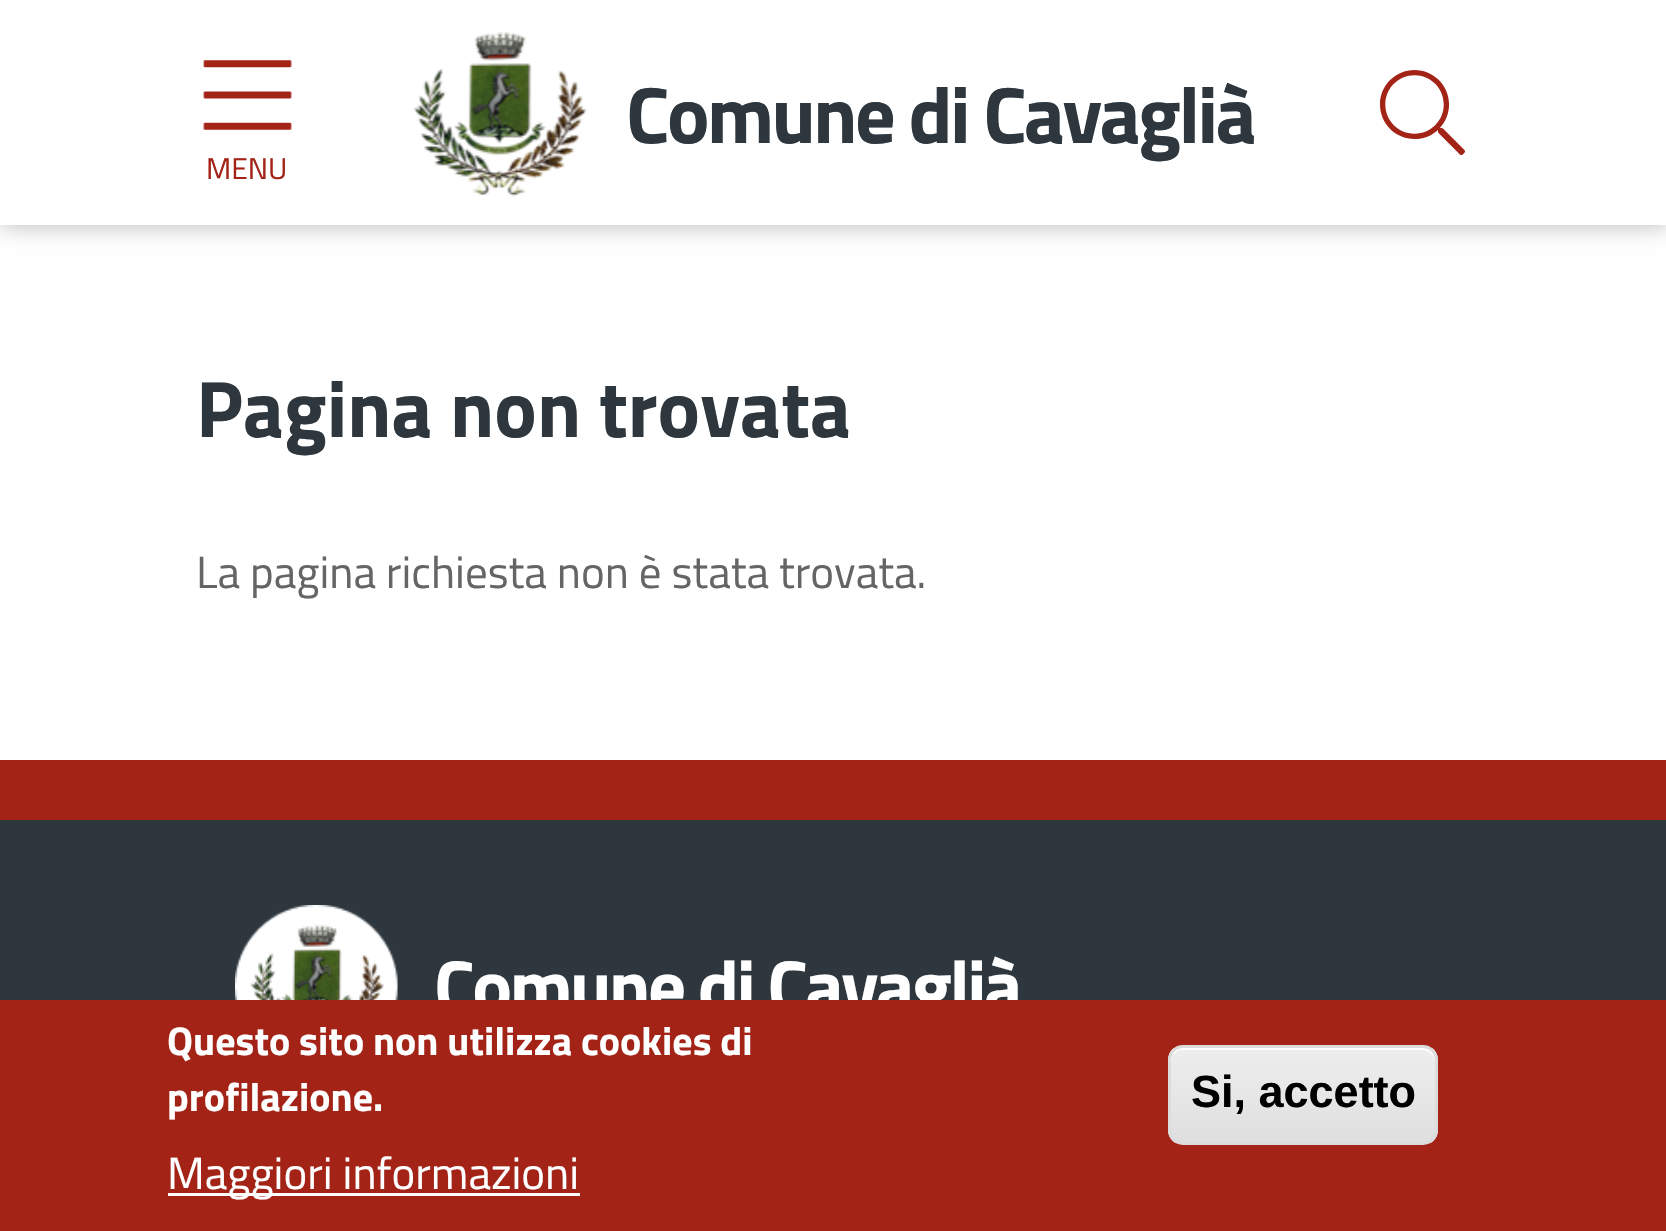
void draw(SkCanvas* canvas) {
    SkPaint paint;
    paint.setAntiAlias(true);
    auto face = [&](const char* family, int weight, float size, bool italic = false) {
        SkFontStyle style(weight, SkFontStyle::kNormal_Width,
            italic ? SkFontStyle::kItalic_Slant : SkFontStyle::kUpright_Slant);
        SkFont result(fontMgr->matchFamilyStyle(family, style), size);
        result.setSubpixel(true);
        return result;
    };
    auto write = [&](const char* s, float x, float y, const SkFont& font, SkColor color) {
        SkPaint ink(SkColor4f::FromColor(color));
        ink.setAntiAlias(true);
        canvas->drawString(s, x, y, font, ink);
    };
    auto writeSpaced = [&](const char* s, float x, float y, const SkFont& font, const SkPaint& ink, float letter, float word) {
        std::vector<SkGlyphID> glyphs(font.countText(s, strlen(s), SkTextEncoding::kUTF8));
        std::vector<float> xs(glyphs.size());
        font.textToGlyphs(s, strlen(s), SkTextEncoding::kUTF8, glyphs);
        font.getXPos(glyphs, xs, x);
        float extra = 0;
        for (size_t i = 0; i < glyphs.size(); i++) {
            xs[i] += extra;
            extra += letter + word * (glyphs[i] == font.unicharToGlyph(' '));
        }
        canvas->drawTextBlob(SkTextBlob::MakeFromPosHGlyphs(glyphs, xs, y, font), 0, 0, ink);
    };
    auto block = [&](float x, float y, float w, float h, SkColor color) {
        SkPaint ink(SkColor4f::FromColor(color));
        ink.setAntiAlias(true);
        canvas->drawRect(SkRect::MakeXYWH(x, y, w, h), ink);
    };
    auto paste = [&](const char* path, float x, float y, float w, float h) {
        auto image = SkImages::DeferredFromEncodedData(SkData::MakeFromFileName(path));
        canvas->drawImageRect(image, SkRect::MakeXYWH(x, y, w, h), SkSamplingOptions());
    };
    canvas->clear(SK_ColorWHITE);
    paint.setColor(SkColorSetRGB(198, 198, 198));
    paint.setMaskFilter(SkMaskFilter::MakeBlur(kNormal_SkBlurStyle, 10));
    canvas->drawRect(SkRect::MakeXYWH(0, 3, 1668, 225), paint);
    paint.setMaskFilter(nullptr);
    block(0, 0, 1666, 225, SK_ColorWHITE);
    paste("pic1.png", 413, 32, 174, 165);
    auto kFont1 = face("Titillium Web", 700, 80);
    paint.setColor(SkColorSetRGB(46, 55, 62));
    writeSpaced("Comune di Cavaglià", 626, 143, kFont1, paint, -2.5f, 0);
    paste("pic2.png", 1380, 70, 85, 85);
    paste("pic3.png", 203, 60, 89, 70);
    auto kFont2 = face("Titillium Web", 400, 30);
    write("MENU", 206, 179, kFont2, SkColorSetRGB(163, 35, 23));
    write("Pagina non trovata", 196, 437, kFont1, SkColorSetRGB(46, 55, 62));
    auto kFont3 = face("Titillium Web", 400, 45);
    write("La pagina richiesta non è stata trovata.", 196, 588, kFont3, SkColorSetRGB(101, 101, 101));
    block(0, 760, 1666, 60, SkColorSetRGB(163, 35, 23));
    block(0, 820, 1666, 180, SkColorSetRGB(46, 55, 62));
    paste("pic4.png", 235, 905, 163, 95);
    auto kFont4 = face("Titillium Web", 700, 75);
    paint.setColor(SK_ColorWHITE);
    writeSpaced("Comune di Cavaglià", 434, 1013, kFont4, paint, -2.5f, 0);
    block(0, 1000, 1666, 231, SkColorSetRGB(163, 35, 23));
    auto kFont5 = face("Titillium Web", 700, 40);
    write("Questo sito non utilizza cookies di", 167, 1055, kFont5, SK_ColorWHITE);
    write("profilazione.", 167, 1111, kFont5, SK_ColorWHITE);
    block(168, 1193, 412, 3, SK_ColorWHITE);
    write("Maggiori informazioni", 167, 1189, kFont3, SK_ColorWHITE);
    canvas->save();
    canvas->clipPath(SkPathBuilder().moveTo(1183, 1045).lineTo(1423, 1045).cubicTo(1431.5f, 1045, 1438, 1051.5f, 1438, 1060).lineTo(1438, 1130).cubicTo(1438, 1138.5f, 1431.5f, 1145, 1423, 1145).lineTo(1183, 1145).cubicTo(1174.5f, 1145, 1168, 1138.5f, 1168, 1130).lineTo(1168, 1060).cubicTo(1168, 1051.5f, 1174.5f, 1045, 1183, 1045).close().detach(), true);
    {
        const SkColor colors[] = {SkColorSetRGB(237, 237, 237), SkColorSetRGB(223, 223, 223)};
        const float stops[] = {0.05f, 1};
        const SkPoint ends[] = {{1303, 1048}, {1303, 1143}};
        paint.setShader(SkGradientShader::MakeLinear(ends, colors, stops, 2, SkTileMode::kClamp));
        paint.setAlpha(255);
    }
    canvas->drawRect(SkRect::MakeXYWH(1168, 1048, 270, 95), paint);
    canvas->restore();
    paint.setShader(nullptr);
    paint.setColor(SK_ColorWHITE);
    canvas->drawPath(SkPathBuilder().moveTo(1182, 1050).lineTo(1422, 1050).cubicTo(1429, 1050, 1435, 1056, 1435, 1062).lineTo(1435, 1061).cubicTo(1435, 1054, 1429, 1048, 1422, 1048).lineTo(1183, 1048).cubicTo(1176, 1048, 1170, 1054, 1170, 1061).lineTo(1170, 1062).cubicTo(1170, 1056, 1176, 1050, 1182, 1050).close().detach(), paint);
    paint.setStyle(SkPaint::kStroke_Style);
    paint.setStrokeWidth(3);
    paint.setColor(SkColorSetRGB(220, 220, 220));
    canvas->drawRoundRect(SkRect::MakeXYWH(1169.5f, 1046.5f, 267, 97), 13.5f, 13.5f, paint);
    auto kFont6 = face("Liberation Sans", 700, 45);
    write("Si, accetto", 1191, 1107, kFont6, SK_ColorBLACK);
}
